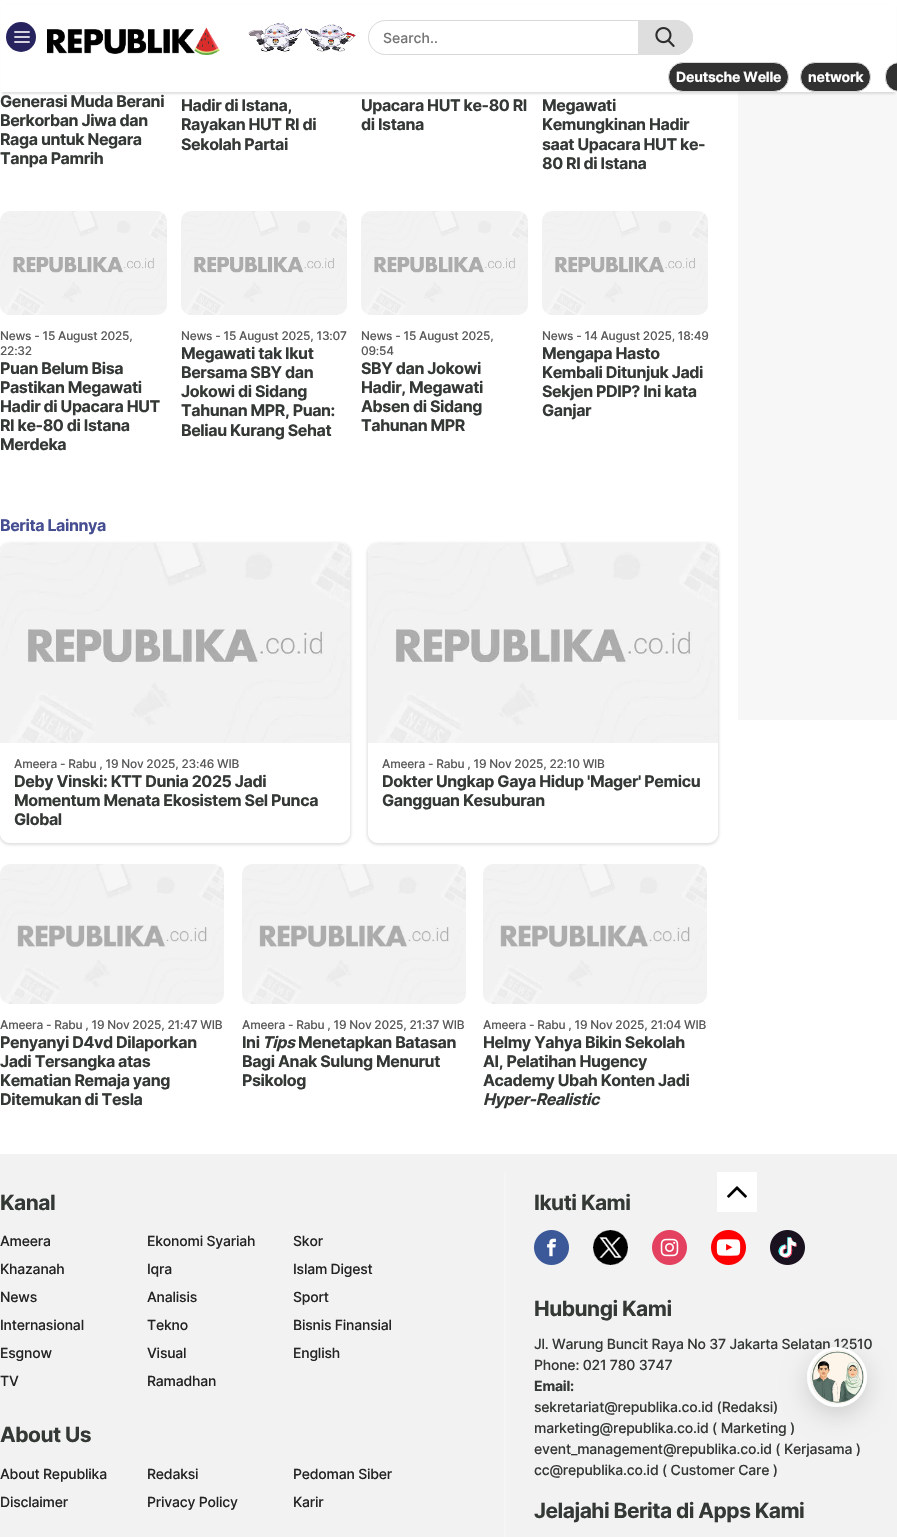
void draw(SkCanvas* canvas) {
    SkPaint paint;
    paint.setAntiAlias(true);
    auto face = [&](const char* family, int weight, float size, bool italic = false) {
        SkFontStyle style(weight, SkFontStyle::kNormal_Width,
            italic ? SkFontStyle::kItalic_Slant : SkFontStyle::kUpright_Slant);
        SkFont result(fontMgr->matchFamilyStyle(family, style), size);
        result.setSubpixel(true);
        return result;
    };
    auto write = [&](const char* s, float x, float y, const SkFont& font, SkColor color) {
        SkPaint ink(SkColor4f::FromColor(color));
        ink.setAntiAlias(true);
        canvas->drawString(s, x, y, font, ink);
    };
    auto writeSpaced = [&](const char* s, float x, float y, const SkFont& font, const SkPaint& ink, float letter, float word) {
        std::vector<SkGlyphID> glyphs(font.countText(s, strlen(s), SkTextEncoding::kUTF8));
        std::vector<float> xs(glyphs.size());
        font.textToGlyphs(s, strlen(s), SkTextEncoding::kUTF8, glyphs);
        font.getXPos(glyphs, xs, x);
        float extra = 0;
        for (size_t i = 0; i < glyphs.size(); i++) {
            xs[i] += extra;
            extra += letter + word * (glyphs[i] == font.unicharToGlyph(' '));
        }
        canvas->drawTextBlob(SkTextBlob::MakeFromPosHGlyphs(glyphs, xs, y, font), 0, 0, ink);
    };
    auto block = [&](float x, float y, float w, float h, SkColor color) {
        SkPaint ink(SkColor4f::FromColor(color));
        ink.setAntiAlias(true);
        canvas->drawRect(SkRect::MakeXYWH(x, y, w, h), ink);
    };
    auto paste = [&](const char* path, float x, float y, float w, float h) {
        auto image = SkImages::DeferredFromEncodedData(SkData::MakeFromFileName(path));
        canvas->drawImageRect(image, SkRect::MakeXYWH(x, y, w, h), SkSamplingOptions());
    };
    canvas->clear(SK_ColorWHITE);
    block(738, 92, 159, 628, SkColorSetRGB(247, 247, 247));
    paint.setColor(SkColorSetARGB(77, 153, 153, 153));
    paint.setMaskFilter(SkMaskFilter::MakeBlur(kNormal_SkBlurStyle, 1));
    canvas->drawRect(SkRect::MakeXYWH(2, 6, 893, 88), paint);
    paint.setMaskFilter(nullptr);
    block(1, 5, 895, 87, SK_ColorWHITE);
    paste("pic1.png", 248, 23, 108, 29);
    paint.setColor(SkColorSetRGB(38, 35, 95));
    canvas->drawCircle(21, 37, 15, paint);
    paste("pic2.png", 14, 31, 16, 12);
    paste("pic3.png", 47, 27, 173, 28);
    paint.setStyle(SkPaint::kStroke_Style);
    paint.setStrokeWidth(1);
    paint.setColor(SkColorSetRGB(217, 217, 217));
    canvas->drawRoundRect(SkRect::MakeXYWH(368.5f, 20.5f, 324, 34), 17, 17, paint);
    auto kFont1 = face("Inter", 500, 14);
    write("Search..", 383, 43, kFont1, SkColorSetRGB(117, 117, 117));
    paint.setStyle(SkPaint::kFill_Style);
    paint.setColor(SkColorSetRGB(222, 222, 222));
    canvas->drawPath(SkPathBuilder().moveTo(638, 20).lineTo(675.5f, 20).cubicTo(685, 20, 693, 28, 693, 37.5f).cubicTo(693, 47, 685, 55, 675.5f, 55).lineTo(638, 55).close().detach(), paint);
    paste("pic4.png", 655, 27, 20, 20);
    paint.setColor(SkColorSetRGB(50, 49, 49));
    canvas->drawRoundRect(SkRect::MakeXYWH(668.5f, 62.5f, 120, 29), 14.5f, 14.5f, paint);
    paint.setStyle(SkPaint::kStroke_Style);
    paint.setColor(SkColorSetRGB(217, 217, 217));
    canvas->drawRoundRect(SkRect::MakeXYWH(668.5f, 62.5f, 120, 29), 14.5f, 14.5f, paint);
    auto kFont2 = face("Inter", 700, 14);
    paint.setStyle(SkPaint::kFill_Style);
    paint.setColor(SK_ColorWHITE);
    writeSpaced("Deutsche Welle", 676, 82, kFont2, paint, -0.2f, 0);
    paint.setColor(SkColorSetRGB(50, 49, 49));
    canvas->drawRoundRect(SkRect::MakeXYWH(800.5f, 62.5f, 70, 29), 14.5f, 14.5f, paint);
    paint.setStyle(SkPaint::kStroke_Style);
    paint.setColor(SkColorSetRGB(217, 217, 217));
    canvas->drawRoundRect(SkRect::MakeXYWH(800.5f, 62.5f, 70, 29), 14.5f, 14.5f, paint);
    paint.setStyle(SkPaint::kFill_Style);
    paint.setColor(SK_ColorWHITE);
    writeSpaced("network", 808, 82, kFont2, paint, -0.2f, 0);
    paint.setColor(SkColorSetRGB(50, 49, 49));
    canvas->drawRoundRect(SkRect::MakeXYWH(885.5f, 62.5f, 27, 29), 14.5f, 14.5f, paint);
    paint.setStyle(SkPaint::kStroke_Style);
    paint.setColor(SkColorSetRGB(217, 217, 217));
    canvas->drawRoundRect(SkRect::MakeXYWH(885.5f, 62.5f, 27, 29), 14.5f, 14.5f, paint);
    auto kFont3 = face("Inter", 700, 16);
    paint.setStyle(SkPaint::kFill_Style);
    paint.setColor(SkColorSetRGB(53, 57, 53));
    writeSpaced("Generasi Muda Berani", 0, 107, kFont3, paint, -0.4f, 0);
    writeSpaced("Berkorban Jiwa dan", 0, 126, kFont3, paint, -0.4f, 0);
    writeSpaced("Raga untuk Negara", 0, 145, kFont3, paint, -0.4f, 0);
    writeSpaced("Tanpa Pamrih", 0, 164, kFont3, paint, -0.4f, 0);
    writeSpaced("Hadir di Istana,", 181, 111, kFont3, paint, -0.4f, 0);
    writeSpaced("Rayakan HUT RI di", 181, 130, kFont3, paint, -0.4f, 0);
    writeSpaced("Sekolah Partai", 181, 150, kFont3, paint, -0.4f, 0);
    writeSpaced("Upacara HUT ke-80 RI", 361, 111, kFont3, paint, -0.4f, 0);
    writeSpaced("di Istana", 361, 130, kFont3, paint, -0.4f, 0);
    writeSpaced("Megawati", 542, 111, kFont3, paint, -0.4f, 0);
    writeSpaced("Kemungkinan Hadir", 542, 130, kFont3, paint, -0.4f, 0);
    writeSpaced("saat Upacara HUT ke-", 542, 150, kFont3, paint, -0.4f, 0);
    writeSpaced("80 RI di Istana", 542, 169, kFont3, paint, -0.4f, 0);
    paste("pic5.png", 0, 211, 167, 104);
    auto kFont4 = face("Inter", 500, 11.9f);
    paint.setColor(SkColorSetRGB(89, 89, 89));
    writeSpaced("News - 15 August 2025,", 0, 340, kFont4, paint, -0.2f, 0);
    writeSpaced("22:32", 0, 355, kFont4, paint, -0.2f, 0);
    paint.setColor(SkColorSetRGB(53, 57, 53));
    writeSpaced("Puan Belum Bisa", 0, 374, kFont3, paint, -0.4f, 0);
    writeSpaced("Pastikan Megawati", 0, 393, kFont3, paint, -0.4f, 0);
    writeSpaced("Hadir di Upacara HUT", 0, 412, kFont3, paint, -0.4f, 0);
    writeSpaced("RI ke-80 di Istana", 0, 431, kFont3, paint, -0.4f, 0);
    writeSpaced("Merdeka", 0, 450, kFont3, paint, -0.4f, 0);
    paste("pic6.png", 181, 211, 166, 104);
    paint.setColor(SkColorSetRGB(89, 89, 89));
    writeSpaced("News - 15 August 2025, 13:07", 181, 340, kFont4, paint, -0.2f, 0);
    paint.setColor(SkColorSetRGB(53, 57, 53));
    writeSpaced("Megawati tak Ikut", 181, 359, kFont3, paint, -0.4f, 0);
    writeSpaced("Bersama SBY dan", 181, 378, kFont3, paint, -0.4f, 0);
    writeSpaced("Jokowi di Sidang", 181, 397, kFont3, paint, -0.4f, 0);
    writeSpaced("Tahunan MPR, Puan:", 181, 416, kFont3, paint, -0.4f, 0);
    writeSpaced("Beliau Kurang Sehat", 181, 436, kFont3, paint, -0.4f, 0);
    paste("pic5.png", 361, 211, 167, 104);
    paint.setColor(SkColorSetRGB(89, 89, 89));
    writeSpaced("News - 15 August 2025,", 361, 340, kFont4, paint, -0.2f, 0);
    writeSpaced("09:54", 361, 355, kFont4, paint, -0.2f, 0);
    paint.setColor(SkColorSetRGB(53, 57, 53));
    writeSpaced("SBY dan Jokowi", 361, 374, kFont3, paint, -0.4f, 0);
    writeSpaced("Hadir, Megawati", 361, 393, kFont3, paint, -0.4f, 0);
    writeSpaced("Absen di Sidang", 361, 412, kFont3, paint, -0.4f, 0);
    writeSpaced("Tahunan MPR", 361, 431, kFont3, paint, -0.4f, 0);
    paste("pic7.png", 542, 211, 166, 104);
    paint.setColor(SkColorSetRGB(89, 89, 89));
    writeSpaced("News - 14 August 2025, 18:49", 542, 340, kFont4, paint, -0.2f, 0);
    paint.setColor(SkColorSetRGB(53, 57, 53));
    writeSpaced("Mengapa Hasto", 542, 359, kFont3, paint, -0.4f, 0);
    writeSpaced("Kembali Ditunjuk Jadi", 542, 378, kFont3, paint, -0.4f, 0);
    writeSpaced("Sekjen PDIP? Ini kata", 542, 397, kFont3, paint, -0.4f, 0);
    writeSpaced("Ganjar", 542, 416, kFont3, paint, -0.4f, 0);
    paint.setColor(SkColorSetRGB(70, 78, 146));
    writeSpaced("Berita Lainnya", 0, 531, kFont3, paint, -0.4f, 0);
    canvas->save();
    canvas->clipPath(SkPathBuilder(SkPathFillType::kEvenOdd).moveTo(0, 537).lineTo(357, 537).lineTo(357, 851).lineTo(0, 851).close().moveTo(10, 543).lineTo(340, 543).cubicTo(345.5f, 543, 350, 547.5f, 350, 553).lineTo(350, 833).cubicTo(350, 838.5f, 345.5f, 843, 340, 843).lineTo(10, 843).cubicTo(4.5f, 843, 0, 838.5f, 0, 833).lineTo(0, 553).cubicTo(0, 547.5f, 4.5f, 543, 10, 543).close().detach(), true);
    paint.setColor(SkColorSetARGB(77, 153, 153, 153));
    paint.setMaskFilter(SkMaskFilter::MakeBlur(kNormal_SkBlurStyle, 1.5f));
    canvas->drawRoundRect(SkRect::MakeXYWH(-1, 543, 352, 302), 11, 11, paint);
    paint.setMaskFilter(nullptr);
    canvas->restore();
    paste("pic8.png", 0, 543, 350, 200);
    paint.setColor(SkColorSetRGB(89, 89, 89));
    writeSpaced("Ameera - Rabu , 19 Nov 2025, 23:46 WIB", 14, 768, kFont4, paint, -0.2f, 0);
    paint.setColor(SkColorSetRGB(53, 57, 53));
    writeSpaced("Deby Vinski: KTT Dunia 2025 Jadi", 14, 787, kFont3, paint, -0.4f, 0);
    writeSpaced("Momentum Menata Ekosistem Sel Punca", 14, 806, kFont3, paint, -0.4f, 0);
    writeSpaced("Global", 14, 825, kFont3, paint, -0.4f, 0);
    canvas->save();
    canvas->clipPath(SkPathBuilder(SkPathFillType::kEvenOdd).moveTo(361, 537).lineTo(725, 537).lineTo(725, 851).lineTo(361, 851).close().moveTo(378, 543).lineTo(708, 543).cubicTo(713.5f, 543, 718, 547.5f, 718, 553).lineTo(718, 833).cubicTo(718, 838.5f, 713.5f, 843, 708, 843).lineTo(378, 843).cubicTo(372.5f, 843, 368, 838.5f, 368, 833).lineTo(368, 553).cubicTo(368, 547.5f, 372.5f, 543, 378, 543).close().detach(), true);
    paint.setColor(SkColorSetARGB(77, 153, 153, 153));
    paint.setMaskFilter(SkMaskFilter::MakeBlur(kNormal_SkBlurStyle, 1.5f));
    canvas->drawRoundRect(SkRect::MakeXYWH(367, 543, 352, 302), 11, 11, paint);
    paint.setMaskFilter(nullptr);
    canvas->restore();
    paste("pic9.png", 368, 543, 350, 200);
    paint.setColor(SkColorSetRGB(89, 89, 89));
    writeSpaced("Ameera - Rabu , 19 Nov 2025, 22:10 WIB", 382, 768, kFont4, paint, -0.2f, 0);
    paint.setColor(SkColorSetRGB(53, 57, 53));
    writeSpaced("Dokter Ungkap Gaya Hidup 'Mager' Pemicu", 382, 787, kFont3, paint, -0.4f, 0);
    writeSpaced("Gangguan Kesuburan", 382, 806, kFont3, paint, -0.4f, 0);
    paste("pic10.png", 0, 864, 224, 140);
    paint.setColor(SkColorSetRGB(89, 89, 89));
    writeSpaced("Ameera - Rabu , 19 Nov 2025, 21:47 WIB", 0, 1029, kFont4, paint, -0.2f, 0);
    paint.setColor(SkColorSetRGB(53, 57, 53));
    writeSpaced("Penyanyi D4vd Dilaporkan", 0, 1048, kFont3, paint, -0.4f, 0);
    writeSpaced("Jadi Tersangka atas", 0, 1067, kFont3, paint, -0.4f, 0);
    writeSpaced("Kematian Remaja yang", 0, 1086, kFont3, paint, -0.4f, 0);
    writeSpaced("Ditemukan di Tesla", 0, 1105, kFont3, paint, -0.4f, 0);
    paste("pic11.png", 242, 864, 224, 140);
    paint.setColor(SkColorSetRGB(89, 89, 89));
    writeSpaced("Ameera - Rabu , 19 Nov 2025, 21:37 WIB", 242, 1029, kFont4, paint, -0.2f, 0);
    paint.setColor(SkColorSetRGB(53, 57, 53));
    writeSpaced("Ini", 242, 1048, kFont3, paint, -0.4f, 0);
    auto kFont5 = face("Inter", 700, 16, true);
    writeSpaced("Tips", 262, 1048, kFont5, paint, -0.4f, 0);
    writeSpaced("Menetapkan Batasan", 298, 1048, kFont3, paint, -0.4f, 0);
    writeSpaced("Bagi Anak Sulung Menurut", 242, 1067, kFont3, paint, -0.4f, 0);
    writeSpaced("Psikolog", 242, 1086, kFont3, paint, -0.4f, 0);
    paste("pic12.png", 483, 864, 224, 140);
    paint.setColor(SkColorSetRGB(89, 89, 89));
    writeSpaced("Ameera - Rabu , 19 Nov 2025, 21:04 WIB", 483, 1029, kFont4, paint, -0.2f, 0);
    paint.setColor(SkColorSetRGB(53, 57, 53));
    writeSpaced("Helmy Yahya Bikin Sekolah", 483, 1048, kFont3, paint, -0.4f, 0);
    writeSpaced("AI, Pelatihan Hugency", 483, 1067, kFont3, paint, -0.4f, 0);
    writeSpaced("Academy Ubah Konten Jadi", 483, 1086, kFont3, paint, -0.4f, 0);
    writeSpaced("Hyper-Realistic", 483, 1105, kFont5, paint, -0.4f, 0);
    block(0, 1154, 897, 383, SkColorSetRGB(242, 242, 242));
    block(717, 1172, 40, 40, SK_ColorWHITE);
    paste("pic13.png", 727, 1186, 20, 12);
    auto kFont6 = face("Inter", 700, 21);
    writeSpaced("Kanal", 0, 1210, kFont6, paint, -0.5f, 0);
    paint.setColor(SkColorSetRGB(36, 36, 36));
    writeSpaced("Ameera", 0, 1246, kFont1, paint, -0.2f, 0);
    writeSpaced("Ekonomi Syariah", 147, 1246, kFont1, paint, -0.2f, 0);
    writeSpaced("Skor", 293, 1246, kFont1, paint, -0.2f, 0);
    writeSpaced("Khazanah", 0, 1274, kFont1, paint, -0.2f, 0);
    writeSpaced("Iqra", 147, 1274, kFont1, paint, -0.2f, 0);
    writeSpaced("Islam Digest", 293, 1274, kFont1, paint, -0.2f, 0);
    writeSpaced("News", 0, 1302, kFont1, paint, -0.2f, 0);
    writeSpaced("Analisis", 147, 1302, kFont1, paint, -0.2f, 0);
    writeSpaced("Sport", 293, 1302, kFont1, paint, -0.2f, 0);
    writeSpaced("Internasional", 0, 1330, kFont1, paint, -0.2f, 0);
    writeSpaced("Tekno", 147, 1330, kFont1, paint, -0.2f, 0);
    writeSpaced("Bisnis Finansial", 293, 1330, kFont1, paint, -0.2f, 0);
    writeSpaced("Esgnow", 0, 1358, kFont1, paint, -0.2f, 0);
    writeSpaced("Visual", 147, 1358, kFont1, paint, -0.2f, 0);
    writeSpaced("English", 293, 1358, kFont1, paint, -0.2f, 0);
    writeSpaced("TV", 0, 1386, kFont1, paint, -0.2f, 0);
    writeSpaced("Ramadhan", 147, 1386, kFont1, paint, -0.2f, 0);
    paint.setColor(SkColorSetRGB(53, 57, 53));
    writeSpaced("About Us", 0, 1442, kFont6, paint, -0.5f, 0);
    paint.setColor(SkColorSetRGB(36, 36, 36));
    writeSpaced("About Republika", 0, 1479, kFont1, paint, -0.2f, 0);
    writeSpaced("Redaksi", 147, 1479, kFont1, paint, -0.2f, 0);
    writeSpaced("Pedoman Siber", 293, 1479, kFont1, paint, -0.2f, 0);
    writeSpaced("Disclaimer", 0, 1507, kFont1, paint, -0.2f, 0);
    writeSpaced("Privacy Policy", 147, 1507, kFont1, paint, -0.2f, 0);
    writeSpaced("Karir", 293, 1507, kFont1, paint, -0.2f, 0);
    block(504, 1172, 2, 365, SkColorSetRGB(245, 245, 245));
    paint.setColor(SkColorSetRGB(53, 57, 53));
    writeSpaced("Ikuti Kami", 534, 1210, kFont6, paint, -0.5f, 0);
    paste("pic14.png", 534, 1230, 35, 35);
    paste("pic15.png", 593, 1230, 35, 35);
    paste("pic16.png", 652, 1230, 35, 35);
    paste("pic17.png", 711, 1230, 35, 35);
    paste("pic18.png", 770, 1230, 35, 35);
    writeSpaced("Hubungi Kami", 534, 1316, kFont6, paint, -0.5f, 0);
    writeSpaced("Jl. Warung Buncit Raya No 37 Jakarta Selatan 12510", 534, 1349, kFont1, paint, -0.2f, 0);
    writeSpaced("Phone: 021 780 3747", 534, 1370, kFont1, paint, -0.2f, 0);
    writeSpaced("Email:", 534, 1391, kFont2, paint, -0.2f, 0);
    writeSpaced("sekretariat@republika.co.id (Redaksi)", 534, 1412, kFont1, paint, -0.2f, 0);
    writeSpaced("marketing@republika.co.id ( Marketing )", 534, 1433, kFont1, paint, -0.2f, 0);
    writeSpaced("event_management@republika.co.id ( Kerjasama )", 534, 1454, kFont1, paint, -0.2f, 0);
    writeSpaced("cc@republika.co.id ( Customer Care )", 534, 1475, kFont1, paint, -0.2f, 0);
    writeSpaced("Jelajahi Berita di Apps Kami", 534, 1518, kFont6, paint, -0.5f, 0);
    canvas->save();
    canvas->clipPath(SkPathBuilder(SkPathFillType::kEvenOdd).moveTo(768, 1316).lineTo(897, 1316).lineTo(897, 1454).lineTo(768, 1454).close().moveTo(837, 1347).cubicTo(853.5f, 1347, 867, 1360.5f, 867, 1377).cubicTo(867, 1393.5f, 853.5f, 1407, 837, 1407).cubicTo(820.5f, 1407, 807, 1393.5f, 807, 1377).cubicTo(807, 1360.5f, 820.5f, 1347, 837, 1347).close().detach(), true);
    paint.setColor(SkColorSetARGB(38, 0, 0, 0));
    paint.setMaskFilter(SkMaskFilter::MakeBlur(kNormal_SkBlurStyle, 12.5f));
    canvas->drawRoundRect(SkRect::MakeXYWH(807, 1355, 60, 60), 30, 30, paint);
    paint.setMaskFilter(nullptr);
    canvas->restore();
    paste("pic19.png", 811, 1351, 53, 53);
    paint.setStyle(SkPaint::kStroke_Style);
    paint.setStrokeWidth(3);
    paint.setColor(SK_ColorWHITE);
    canvas->drawCircle(837, 1377, 28.5f, paint);
}
